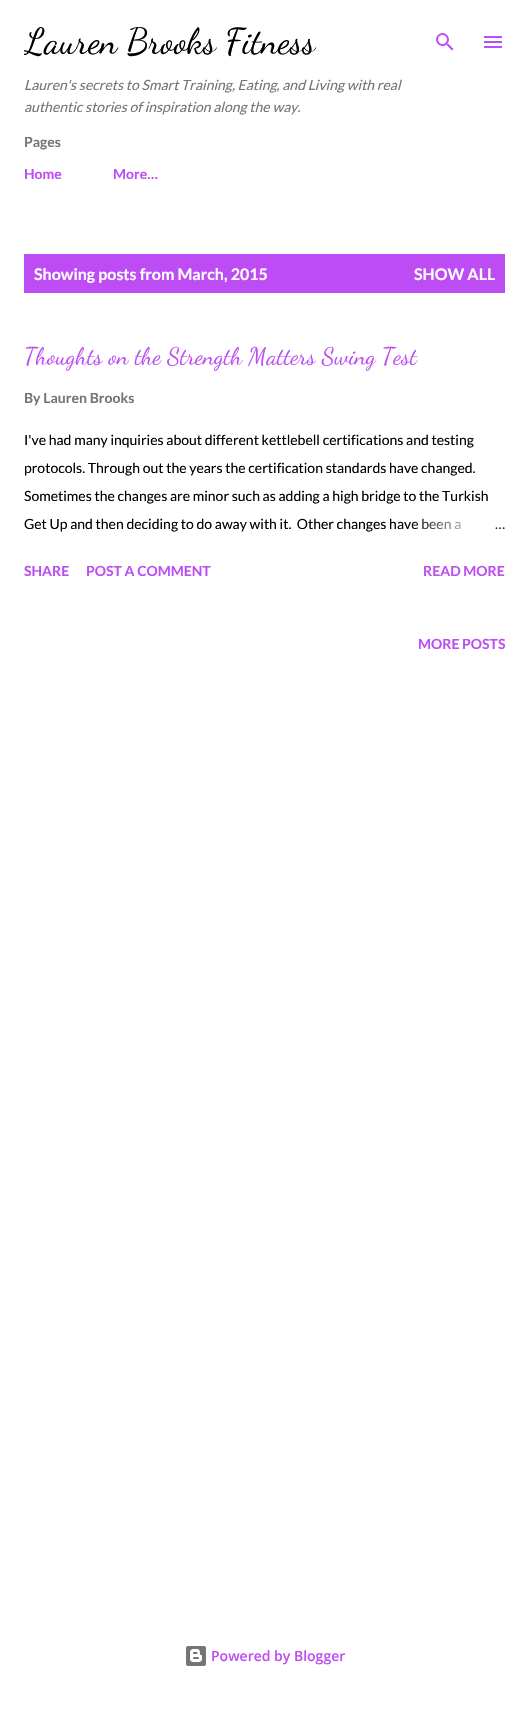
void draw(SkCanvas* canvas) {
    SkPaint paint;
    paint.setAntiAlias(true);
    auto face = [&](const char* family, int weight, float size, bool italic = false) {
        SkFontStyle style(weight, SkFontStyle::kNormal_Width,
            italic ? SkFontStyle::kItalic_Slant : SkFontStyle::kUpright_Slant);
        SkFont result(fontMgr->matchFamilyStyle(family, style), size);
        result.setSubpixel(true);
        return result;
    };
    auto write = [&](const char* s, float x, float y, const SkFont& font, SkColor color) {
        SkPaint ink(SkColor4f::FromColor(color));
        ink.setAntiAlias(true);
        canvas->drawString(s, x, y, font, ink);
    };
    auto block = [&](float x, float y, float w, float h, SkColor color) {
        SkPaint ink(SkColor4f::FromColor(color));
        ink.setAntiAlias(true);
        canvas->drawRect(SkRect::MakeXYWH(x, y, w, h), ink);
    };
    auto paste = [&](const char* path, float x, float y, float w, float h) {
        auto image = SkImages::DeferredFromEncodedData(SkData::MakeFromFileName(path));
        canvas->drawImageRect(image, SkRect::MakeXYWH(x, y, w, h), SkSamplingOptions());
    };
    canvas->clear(SK_ColorWHITE);
    canvas->save();
    canvas->clipRect(SkRect::MakeXYWH(24, 24, 433, 109));
    auto kFont1 = face("Dancing Script", 400, 36);
    write("Lauren Brooks Fitness", 24, 53, kFont1, SK_ColorBLACK);
    canvas->restore();
    auto kFont2 = face("Lato", 400, 14, true);
    write("Lauren's secrets to Smart Training, Eating, and Living with real", 24, 90, kFont2, SkColorSetRGB(117, 117, 117));
    write("authentic stories of inspiration along the way.", 24, 112, kFont2, SkColorSetRGB(117, 117, 117));
    paste("pic1.png", 436, 33, 18, 18);
    paste("pic2.png", 484, 36, 18, 12);
    auto kFont3 = face("Lato", 700, 14);
    write("Pages", 24, 147, kFont3, SkColorSetRGB(117, 117, 117));
    write("Home", 24, 179, kFont3, SkColorSetRGB(189, 76, 244));
    write("More…", 113, 179, kFont3, SkColorSetRGB(189, 76, 244));
    block(24, 254, 481, 39, SkColorSetRGB(189, 76, 244));
    auto kFont4 = face("Lato", 700, 16);
    write("Showing posts from March, 2015", 34, 280, kFont4, SK_ColorWHITE);
    write("SHOW ALL", 414, 280, kFont4, SK_ColorWHITE);
    auto kFont5 = face("Dancing Script", 400, 24);
    write("Thoughts on the Strength Matters Swing Test", 24, 364, kFont5, SkColorSetRGB(189, 76, 244));
    write("By Lauren Brooks", 24, 403, kFont3, SkColorSetRGB(117, 117, 117));
    auto kFont6 = face("Lato", 400, 14);
    write("I've had many inquiries about different kettlebell certifications and testing", 24, 445, kFont6, SK_ColorBLACK);
    write("protocols. Through out the years the certification standards have changed.", 24, 473, kFont6, SK_ColorBLACK);
    write("Sometimes the changes are minor such as adding a high bridge to the Turkish", 24, 501, kFont6, SK_ColorBLACK);
    write("Get Up and then deciding to do away with it.  Other changes have been a", 24, 529, kFont6, SK_ColorBLACK);
    {
        const SkColor colors[] = {SK_ColorWHITE, SK_ColorWHITE, SkColorSetARGB(0, 255, 255, 255)};
        const float stops[] = {0, 0.2f, 1};
        const SkPoint ends[] = {{505, 524}, {409, 524}};
        paint.setShader(SkGradientShader::MakeLinear(ends, colors, stops, 3, SkTileMode::kClamp));
        paint.setAlpha(255);
    }
    canvas->drawRect(SkRect::MakeXYWH(412, 518, 49, 12), paint);
    write("…", 495, 529, kFont6, SkColorSetRGB(41, 41, 41));
    write("SHARE", 24, 576, kFont3, SkColorSetRGB(189, 76, 244));
    write("POST A COMMENT", 86, 576, kFont3, SkColorSetRGB(189, 76, 244));
    write("READ MORE", 423, 576, kFont3, SkColorSetRGB(189, 76, 244));
    write("MORE POSTS", 418, 649, kFont3, SkColorSetRGB(189, 76, 244));
    paste("pic3.png", 186, 1646, 20, 20);
    auto kFont7 = face("Open Sans", 600, 14);
    write("Powered by Blogger", 211, 1661, kFont7, SkColorSetRGB(189, 76, 244));
}
